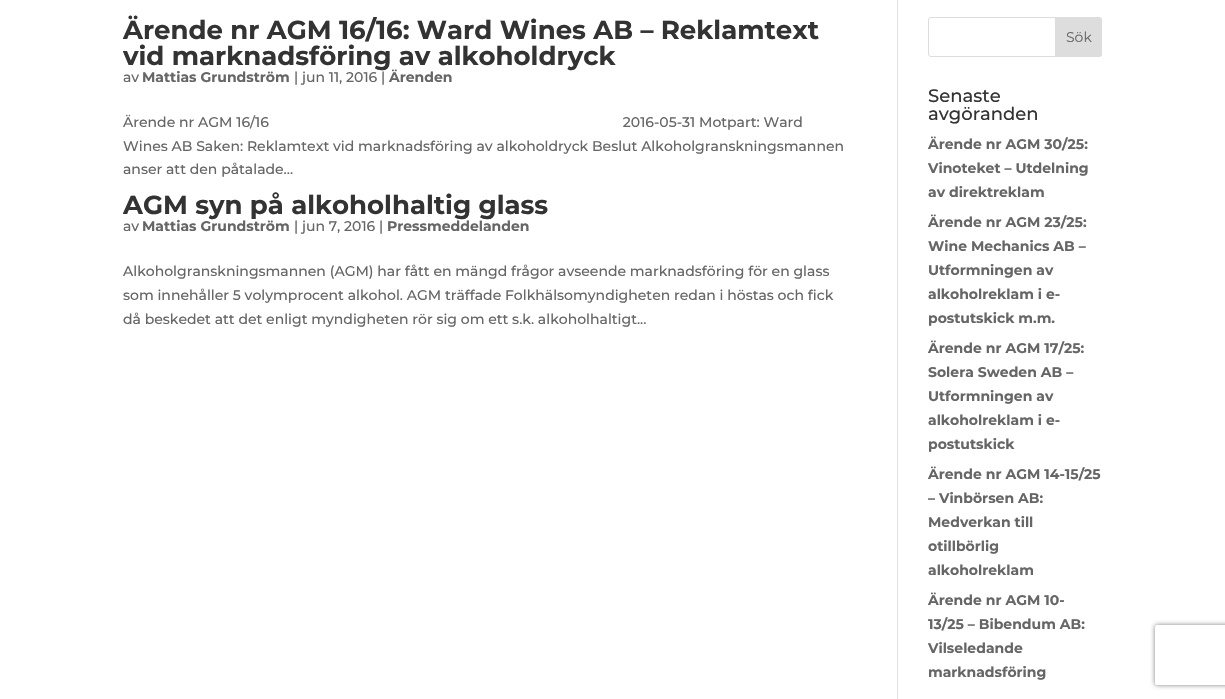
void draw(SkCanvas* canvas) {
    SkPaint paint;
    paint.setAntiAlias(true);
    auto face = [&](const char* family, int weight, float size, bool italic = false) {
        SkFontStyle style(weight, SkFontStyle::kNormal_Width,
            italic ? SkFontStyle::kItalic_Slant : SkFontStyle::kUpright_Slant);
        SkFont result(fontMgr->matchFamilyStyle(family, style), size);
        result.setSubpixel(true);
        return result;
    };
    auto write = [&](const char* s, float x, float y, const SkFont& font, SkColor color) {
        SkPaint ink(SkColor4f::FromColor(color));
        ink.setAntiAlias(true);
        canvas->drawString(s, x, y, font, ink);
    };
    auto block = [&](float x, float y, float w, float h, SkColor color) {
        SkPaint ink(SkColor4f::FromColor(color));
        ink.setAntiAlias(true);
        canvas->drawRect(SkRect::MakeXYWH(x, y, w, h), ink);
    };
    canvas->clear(SK_ColorWHITE);
    block(897, 0, 1, 699, SkColorSetRGB(226, 226, 226));
    auto kFont1 = face("Montserrat", 100, 26);
    write("Ärende nr AGM 16/16: Ward Wines AB – Reklamtext", 123, 39, kFont1, SkColorSetRGB(51, 51, 51));
    write("vid marknadsföring av alkoholdryck", 123, 65, kFont1, SkColorSetRGB(51, 51, 51));
    auto kFont2 = face("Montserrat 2", 100, 14);
    write("av", 123, 82, kFont2, SkColorSetRGB(102, 102, 102));
    auto kFont3 = face("Montserrat", 100, 14);
    write("Mattias Grundström", 142, 82, kFont3, SkColorSetRGB(102, 102, 102));
    write("| jun 11, 2016 |", 294, 82, kFont2, SkColorSetRGB(102, 102, 102));
    write("Ärenden", 389, 82, kFont3, SkColorSetRGB(102, 102, 102));
    write("Ärende nr AGM 16/16                                                                                              2016-05-31 Motpart: Ward", 123, 127, kFont2, SkColorSetRGB(102, 102, 102));
    write("Wines AB Saken: Reklamtext vid marknadsföring av alkoholdryck Beslut Alkoholgranskningsmannen", 123, 151, kFont2, SkColorSetRGB(102, 102, 102));
    write("anser att den påtalade...", 123, 174, kFont2, SkColorSetRGB(102, 102, 102));
    write("AGM syn på alkoholhaltig glass", 123, 214, kFont1, SkColorSetRGB(51, 51, 51));
    write("av", 123, 231, kFont2, SkColorSetRGB(102, 102, 102));
    write("Mattias Grundström", 142, 231, kFont3, SkColorSetRGB(102, 102, 102));
    write("| jun 7, 2016 |", 294, 231, kFont2, SkColorSetRGB(102, 102, 102));
    write("Pressmeddelanden", 387, 231, kFont3, SkColorSetRGB(102, 102, 102));
    write("Alkoholgranskningsmannen (AGM) har fått en mängd frågor avseende marknadsföring för en glass", 123, 276, kFont2, SkColorSetRGB(102, 102, 102));
    write("som innehåller 5 volymprocent alkohol. AGM träffade Folkhälsomyndigheten redan i höstas och fick", 123, 300, kFont2, SkColorSetRGB(102, 102, 102));
    write("då beskedet att det enligt myndigheten rör sig om ett s.k. alkoholhaltigt...", 123, 324, kFont2, SkColorSetRGB(102, 102, 102));
    paint.setStyle(SkPaint::kStroke_Style);
    paint.setStrokeWidth(1);
    paint.setColor(SkColorSetRGB(221, 221, 221));
    canvas->drawRoundRect(SkRect::MakeXYWH(928.5f, 17.5f, 173, 39), 2.5f, 2.5f, paint);
    paint.setStyle(SkPaint::kFill_Style);
    canvas->drawPath(SkPathBuilder().moveTo(1055.5f, 17.5f).lineTo(1099, 17.5f).cubicTo(1100.5f, 17.5f, 1101.5f, 18.5f, 1101.5f, 20).lineTo(1101.5f, 54).cubicTo(1101.5f, 55.5f, 1100.5f, 56.5f, 1099, 56.5f).lineTo(1055.5f, 56.5f).close().detach(), paint);
    paint.setStyle(SkPaint::kStroke_Style);
    canvas->drawPath(SkPathBuilder().moveTo(1055.5f, 17.5f).lineTo(1099, 17.5f).cubicTo(1100.5f, 17.5f, 1101.5f, 18.5f, 1101.5f, 20).lineTo(1101.5f, 54).cubicTo(1101.5f, 55.5f, 1100.5f, 56.5f, 1099, 56.5f).lineTo(1055.5f, 56.5f).close().detach(), paint);
    auto kFont4 = face("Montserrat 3", 100, 14);
    write("Sök", 1066, 42, kFont4, SkColorSetRGB(102, 102, 102));
    auto kFont5 = face("Montserrat 2", 100, 18);
    write("Senaste", 928, 102, kFont5, SkColorSetRGB(51, 51, 51));
    write("avgöranden", 928, 120, kFont5, SkColorSetRGB(51, 51, 51));
    write("Ärende nr AGM 30/25:", 928, 149, kFont3, SkColorSetRGB(102, 102, 102));
    write("Vinoteket – Utdelning", 928, 173, kFont3, SkColorSetRGB(102, 102, 102));
    write("av direktreklam", 928, 197, kFont3, SkColorSetRGB(102, 102, 102));
    write("Ärende nr AGM 23/25:", 928, 227, kFont3, SkColorSetRGB(102, 102, 102));
    write("Wine Mechanics AB –", 928, 251, kFont3, SkColorSetRGB(102, 102, 102));
    write("Utformningen av", 928, 275, kFont3, SkColorSetRGB(102, 102, 102));
    write("alkoholreklam i e-", 928, 299, kFont3, SkColorSetRGB(102, 102, 102));
    write("postutskick m.m.", 928, 323, kFont3, SkColorSetRGB(102, 102, 102));
    write("Ärende nr AGM 17/25:", 928, 353, kFont3, SkColorSetRGB(102, 102, 102));
    write("Solera Sweden AB –", 928, 377, kFont3, SkColorSetRGB(102, 102, 102));
    write("Utformningen av", 928, 401, kFont3, SkColorSetRGB(102, 102, 102));
    write("alkoholreklam i e-", 928, 425, kFont3, SkColorSetRGB(102, 102, 102));
    write("postutskick", 928, 449, kFont3, SkColorSetRGB(102, 102, 102));
    write("Ärende nr AGM 14-15/25", 928, 479, kFont3, SkColorSetRGB(102, 102, 102));
    write("– Vinbörsen AB:", 928, 503, kFont3, SkColorSetRGB(102, 102, 102));
    write("Medverkan till", 928, 527, kFont3, SkColorSetRGB(102, 102, 102));
    write("otillbörlig", 928, 551, kFont3, SkColorSetRGB(102, 102, 102));
    write("alkoholreklam", 928, 575, kFont3, SkColorSetRGB(102, 102, 102));
    write("Ärende nr AGM 10-", 928, 605, kFont3, SkColorSetRGB(102, 102, 102));
    write("13/25 – Bibendum AB:", 928, 629, kFont3, SkColorSetRGB(102, 102, 102));
    write("Vilseledande", 928, 653, kFont3, SkColorSetRGB(102, 102, 102));
    write("marknadsföring", 928, 677, kFont3, SkColorSetRGB(102, 102, 102));
    canvas->save();
    canvas->clipPath(SkPathBuilder(SkPathFillType::kEvenOdd).moveTo(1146, 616).lineTo(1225, 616).lineTo(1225, 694).lineTo(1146, 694).close().moveTo(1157, 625).lineTo(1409, 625).cubicTo(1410, 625, 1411, 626, 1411, 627).lineTo(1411, 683).cubicTo(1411, 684, 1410, 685, 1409, 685).lineTo(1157, 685).cubicTo(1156, 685, 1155, 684, 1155, 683).lineTo(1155, 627).cubicTo(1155, 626, 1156, 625, 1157, 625).close().detach(), true);
    paint.setStyle(SkPaint::kFill_Style);
    paint.setColor(SkColorSetRGB(128, 128, 128));
    paint.setMaskFilter(SkMaskFilter::MakeBlur(kNormal_SkBlurStyle, 2.5f));
    canvas->drawRoundRect(SkRect::MakeXYWH(1155, 625, 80, 60), 2, 2, paint);
    paint.setMaskFilter(nullptr);
    canvas->restore();
}
